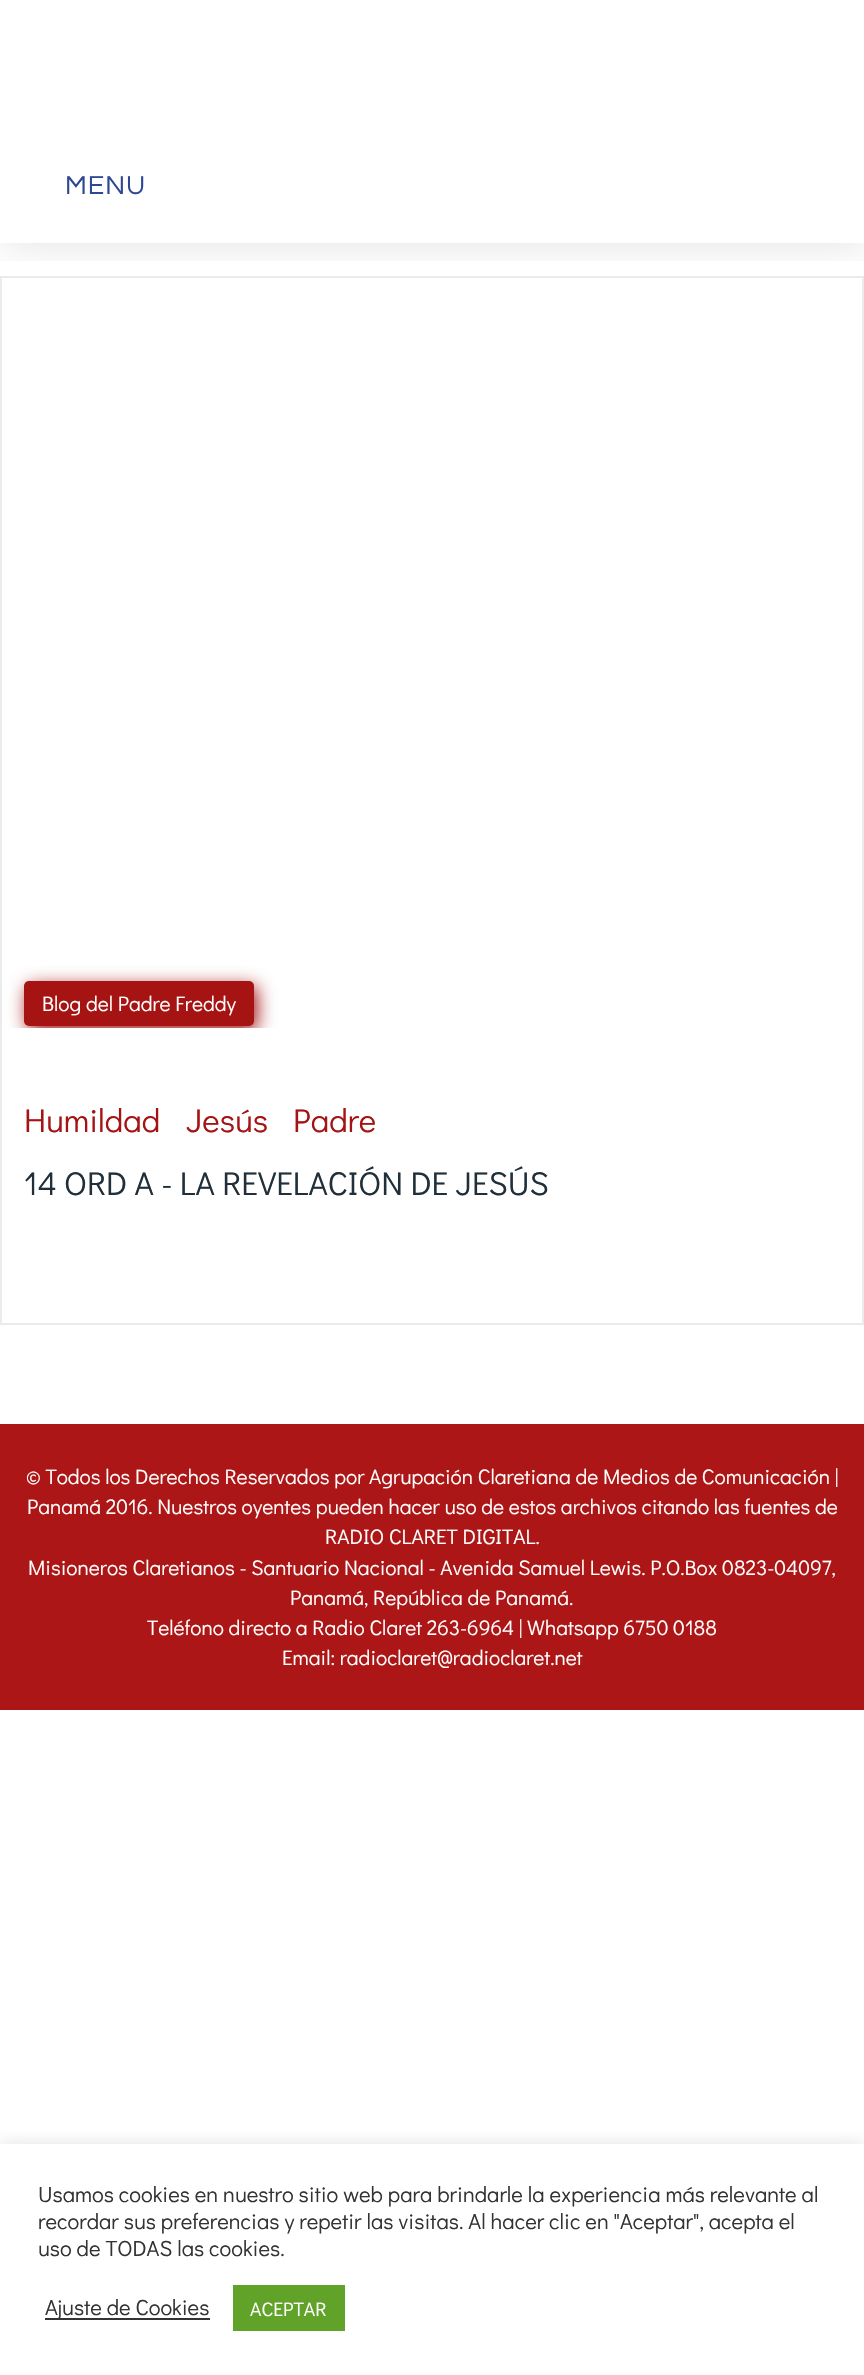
void draw(SkCanvas* canvas) {
    SkPaint paint;
    paint.setAntiAlias(true);
    auto face = [&](const char* family, int weight, float size, bool italic = false) {
        SkFontStyle style(weight, SkFontStyle::kNormal_Width,
            italic ? SkFontStyle::kItalic_Slant : SkFontStyle::kUpright_Slant);
        SkFont result(fontMgr->matchFamilyStyle(family, style), size);
        result.setSubpixel(true);
        return result;
    };
    auto write = [&](const char* s, float x, float y, const SkFont& font, SkColor color) {
        SkPaint ink(SkColor4f::FromColor(color));
        ink.setAntiAlias(true);
        canvas->drawString(s, x, y, font, ink);
    };
    auto writeSpaced = [&](const char* s, float x, float y, const SkFont& font, const SkPaint& ink, float letter, float word) {
        std::vector<SkGlyphID> glyphs(font.countText(s, strlen(s), SkTextEncoding::kUTF8));
        std::vector<float> xs(glyphs.size());
        font.textToGlyphs(s, strlen(s), SkTextEncoding::kUTF8, glyphs);
        font.getXPos(glyphs, xs, x);
        float extra = 0;
        for (size_t i = 0; i < glyphs.size(); i++) {
            xs[i] += extra;
            extra += letter + word * (glyphs[i] == font.unicharToGlyph(' '));
        }
        canvas->drawTextBlob(SkTextBlob::MakeFromPosHGlyphs(glyphs, xs, y, font), 0, 0, ink);
    };
    auto block = [&](float x, float y, float w, float h, SkColor color) {
        SkPaint ink(SkColor4f::FromColor(color));
        ink.setAntiAlias(true);
        canvas->drawRect(SkRect::MakeXYWH(x, y, w, h), ink);
    };
    auto card = [&](float x, float y, float w, float h, float radius, SkColor color) {
        SkPaint ink(SkColor4f::FromColor(color));
        ink.setAntiAlias(true);
        canvas->drawRoundRect(SkRect::MakeXYWH(x, y, w, h), radius, radius, ink);
    };
    canvas->clear(SK_ColorWHITE);
    canvas->save();
    canvas->clipRect(SkRect::MakeXYWH(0, 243, 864, 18));
    paint.setColor(SkColorSetARGB(26, 0, 0, 0));
    paint.setMaskFilter(SkMaskFilter::MakeBlur(kNormal_SkBlurStyle, 18));
    canvas->drawRect(SkRect::MakeXYWH(3, 3, 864, 243), paint);
    paint.setMaskFilter(nullptr);
    canvas->restore();
    auto kFont1 = face("Questrial", 400, 27);
    paint.setColor(SkColorSetRGB(45, 71, 146));
    writeSpaced("MENU", 65, 194, kFont1, paint, 1, 0);
    paint.setStyle(SkPaint::kStroke_Style);
    paint.setStrokeWidth(2);
    paint.setColor(SkColorSetRGB(235, 235, 235));
    canvas->drawRect(SkRect::MakeXYWH(1, 277, 862, 1047), paint);
    canvas->save();
    canvas->clipRect(SkRect::MakeXYWH(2, 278, 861, 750));
    paint.setStyle(SkPaint::kFill_Style);
    paint.setColor(SkColorSetRGB(165, 19, 19));
    paint.setMaskFilter(SkMaskFilter::MakeBlur(kNormal_SkBlurStyle, 9));
    canvas->drawRoundRect(SkRect::MakeXYWH(27, 986, 230, 45), 5, 5, paint);
    paint.setMaskFilter(nullptr);
    canvas->restore();
    card(24, 981, 230, 45, 5, SkColorSetRGB(165, 19, 19));
    auto kFont2 = face("Didact Gothic", 400, 21);
    write("Blog del Padre Freddy", 42, 1011, kFont2, SK_ColorWHITE);
    auto kFont3 = face("Didact Gothic", 400, 33);
    write("Humildad", 24, 1132, kFont3, SkColorSetRGB(165, 19, 19));
    write("Jesús", 186, 1132, kFont3, SkColorSetRGB(165, 19, 19));
    write("Padre", 293, 1132, kFont3, SkColorSetRGB(165, 19, 19));
    write("14 ORD A - LA REVELACIÓN DE JESÚS", 24, 1195, kFont3, SkColorSetRGB(32, 47, 57));
    block(0, 1424, 864, 286, SkColorSetRGB(172, 22, 22));
    write("© Todos los Derechos Reservados por Agrupación Claretiana de Medios de Comunicación |", 26, 1484, kFont2, SK_ColorWHITE);
    write("Panamá 2016. Nuestros oyentes pueden hacer uso de estos archivos citando las fuentes de", 27, 1514, kFont2, SK_ColorWHITE);
    write("RADIO CLARET DIGITAL.", 325, 1544, kFont2, SK_ColorWHITE);
    write("Misioneros Claretianos - Santuario Nacional - Avenida Samuel Lewis. P.O.Box 0823-04097,", 28, 1575, kFont2, SK_ColorWHITE);
    write("Panamá, República de Panamá.", 290, 1605, kFont2, SK_ColorWHITE);
    write("Teléfono directo a Radio Claret 263-6964 | Whatsapp 6750 0188", 147, 1635, kFont2, SK_ColorWHITE);
    write("Email: radioclaret@radioclaret.net", 282, 1665, kFont2, SK_ColorWHITE);
    canvas->save();
    canvas->clipRect(SkRect::MakeXYWH(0, 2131, 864, 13));
    paint.setColor(SkColorSetARGB(77, 172, 171, 171));
    paint.setMaskFilter(SkMaskFilter::MakeBlur(kNormal_SkBlurStyle, 7.5f));
    canvas->drawRect(SkRect::MakeXYWH(0, 2142, 864, 233), paint);
    paint.setMaskFilter(nullptr);
    canvas->restore();
    auto kFont4 = face("Didact Gothic", 400, 22);
    write("Usamos cookies en nuestro sitio web para brindarle la experiencia más relevante al", 38, 2202, kFont4, SkColorSetRGB(51, 51, 51));
    write("recordar sus preferencias y repetir las visitas. Al hacer clic en \"Aceptar\", acepta el", 38, 2229, kFont4, SkColorSetRGB(51, 51, 51));
    write("uso de TODAS las cookies.", 38, 2256, kFont4, SkColorSetRGB(51, 51, 51));
    block(45, 2318, 165, 2, SkColorSetRGB(51, 51, 51));
    write("Ajuste de Cookies", 45, 2315, kFont4, SkColorSetRGB(51, 51, 51));
    block(233, 2285, 112, 46, SkColorSetRGB(97, 162, 41));
    auto kFont5 = face("Didact Gothic", 400, 19.5f);
    write("ACEPTAR", 250, 2316, kFont5, SK_ColorWHITE);
}
